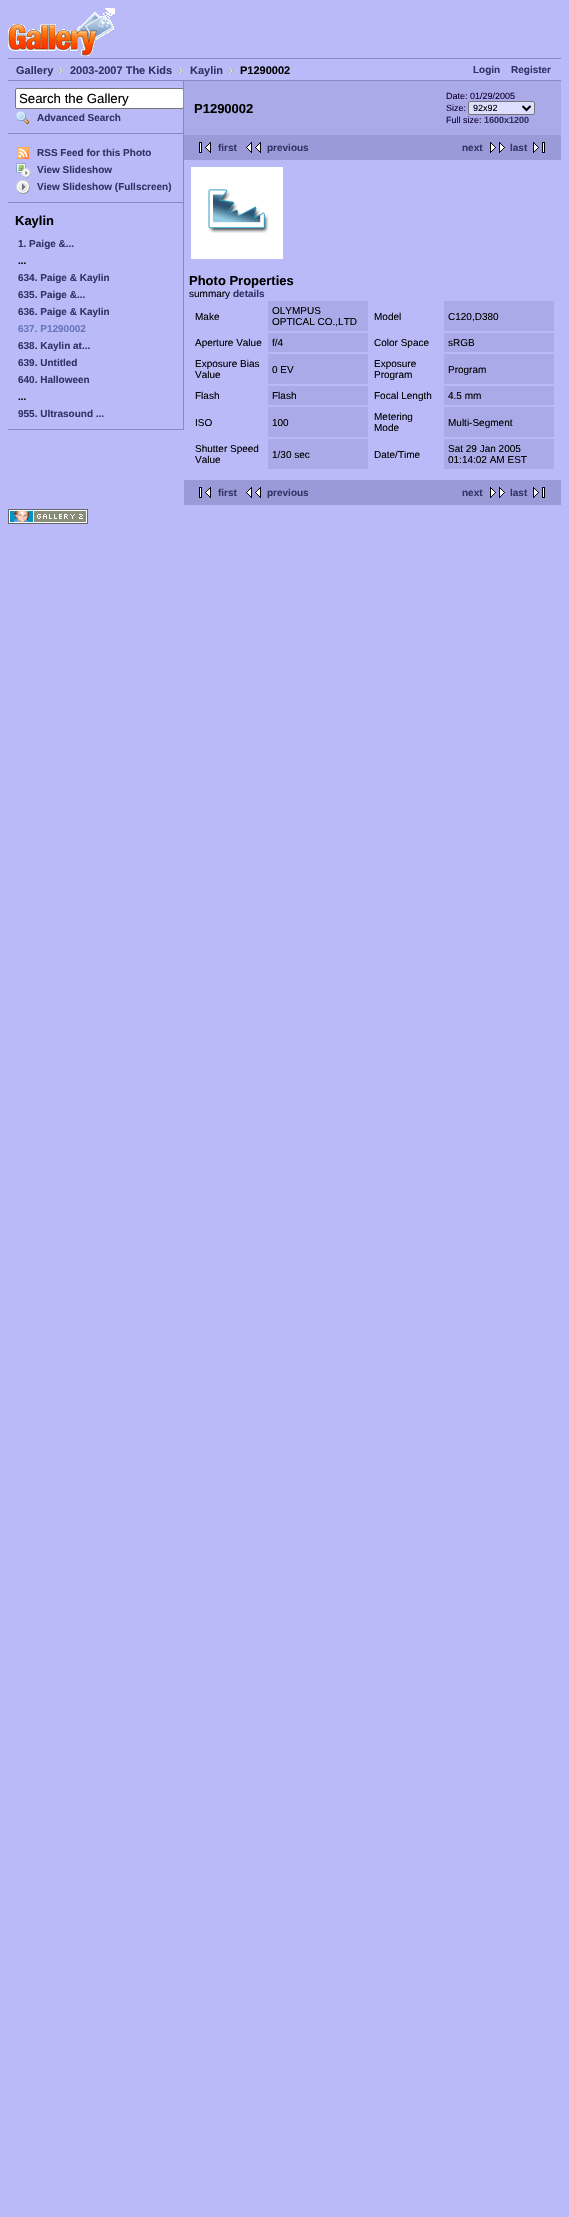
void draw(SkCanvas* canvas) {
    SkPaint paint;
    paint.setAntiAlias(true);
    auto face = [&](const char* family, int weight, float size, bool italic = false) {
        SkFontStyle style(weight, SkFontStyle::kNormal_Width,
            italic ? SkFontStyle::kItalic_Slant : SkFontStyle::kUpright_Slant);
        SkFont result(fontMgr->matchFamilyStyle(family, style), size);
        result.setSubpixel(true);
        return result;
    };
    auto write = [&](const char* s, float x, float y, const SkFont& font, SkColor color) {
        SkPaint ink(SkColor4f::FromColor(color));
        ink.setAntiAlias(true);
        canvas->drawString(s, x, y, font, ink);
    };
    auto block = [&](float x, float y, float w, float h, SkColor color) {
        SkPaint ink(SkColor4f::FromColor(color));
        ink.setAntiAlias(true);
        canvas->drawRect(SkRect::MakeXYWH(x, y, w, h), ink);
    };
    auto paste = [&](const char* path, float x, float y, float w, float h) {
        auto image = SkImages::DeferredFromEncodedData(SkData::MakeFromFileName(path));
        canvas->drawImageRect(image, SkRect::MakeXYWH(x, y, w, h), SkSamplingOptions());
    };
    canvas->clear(SkColorSetRGB(186, 186, 248));
    paste("pic1.png", 8, 8, 107, 48);
    block(8, 58, 553, 1, SkColorSetRGB(136, 136, 200));
    block(8, 80, 553, 1, SkColorSetRGB(136, 136, 200));
    auto kFont1 = face("Liberation Sans", 700, 11);
    write("Gallery", 16, 74, kFont1, SkColorSetRGB(51, 51, 102));
    paste("pic2.png", 58, 68, 6, 5);
    write("2003-2007 The Kids", 70, 74, kFont1, SkColorSetRGB(51, 51, 102));
    paste("pic2.png", 178, 68, 6, 5);
    write("Kaylin", 190, 74, kFont1, SkColorSetRGB(51, 51, 102));
    paste("pic2.png", 228, 68, 6, 5);
    write("P1290002", 240, 74, kFont1, SK_ColorBLACK);
    auto kFont2 = face("Liberation Sans", 700, 10);
    write("Login", 473, 73, kFont2, SkColorSetRGB(51, 51, 102));
    write("Register", 511, 73, kFont2, SkColorSetRGB(51, 51, 102));
    block(183, 81, 1, 349, SkColorSetRGB(136, 136, 200));
    block(8, 133, 175, 1, SkColorSetRGB(136, 136, 200));
    canvas->save();
    canvas->clipRect(SkRect::MakeXYWH(8, 81, 175, 349));
    paint.setColor(SK_ColorWHITE);
    canvas->drawRoundRect(SkRect::MakeXYWH(15.5f, 88.5f, 168, 20), 1.5f, 1.5f, paint);
    paint.setStyle(SkPaint::kStroke_Style);
    paint.setStrokeWidth(1);
    paint.setColor(SkColorSetRGB(118, 118, 118));
    canvas->drawRoundRect(SkRect::MakeXYWH(15.5f, 88.5f, 168, 20), 1.5f, 1.5f, paint);
    canvas->restore();
    auto kFont3 = face("Liberation Sans", 400, 13.25f);
    write("Search the Gallery", 19, 103, kFont3, SK_ColorBLACK);
    paste("pic3.png", 16, 111, 13, 14);
    write("Advanced Search", 37, 121, kFont2, SkColorSetRGB(51, 51, 102));
    block(8, 202, 175, 1, SkColorSetRGB(136, 136, 200));
    paste("pic4.png", 17, 147, 12, 12);
    write("RSS Feed for this Photo", 37, 156, kFont2, SkColorSetRGB(51, 51, 102));
    paste("pic5.png", 16, 163, 15, 15);
    write("View Slideshow", 37, 173, kFont2, SkColorSetRGB(51, 51, 102));
    paste("pic6.png", 16, 180, 14, 14);
    write("View Slideshow (Fullscreen)", 37, 190, kFont2, SkColorSetRGB(51, 51, 102));
    block(8, 429, 175, 1, SkColorSetRGB(136, 136, 200));
    auto kFont4 = face("Liberation Sans", 700, 13);
    write("Kaylin", 15, 225, kFont4, SK_ColorBLACK);
    write("1. Paige &...", 18, 247, kFont2, SkColorSetRGB(51, 51, 102));
    write("...", 18, 264, kFont2, SK_ColorBLACK);
    write("634. Paige & Kaylin", 18, 281, kFont2, SkColorSetRGB(51, 51, 102));
    write("635. Paige &...", 18, 298, kFont2, SkColorSetRGB(51, 51, 102));
    write("636. Paige & Kaylin", 18, 315, kFont2, SkColorSetRGB(51, 51, 102));
    write("637. P1290002", 18, 332, kFont2, SkColorSetRGB(102, 119, 187));
    write("638. Kaylin at...", 18, 349, kFont2, SkColorSetRGB(51, 51, 102));
    write("639. Untitled", 18, 366, kFont2, SkColorSetRGB(51, 51, 102));
    write("640. Halloween", 18, 383, kFont2, SkColorSetRGB(51, 51, 102));
    write("...", 18, 400, kFont2, SK_ColorBLACK);
    write("955. Ultrasound ...", 18, 417, kFont2, SkColorSetRGB(51, 51, 102));
    block(184, 81, 377, 54, SkColorSetRGB(170, 170, 232));
    write("P1290002", 194, 113, kFont4, SK_ColorBLACK);
    auto kFont5 = face("Liberation Sans", 400, 9);
    write("Date: 01/29/2005", 446, 99, kFont5, SkColorSetRGB(17, 0, 51));
    write("Size:", 446, 111, kFont5, SkColorSetRGB(17, 0, 51));
    paint.setStyle(SkPaint::kFill_Style);
    paint.setColor(SkColorSetRGB(221, 221, 255));
    canvas->drawRoundRect(SkRect::MakeXYWH(468.5f, 101.5f, 66, 13), 1.5f, 1.5f, paint);
    paint.setStyle(SkPaint::kStroke_Style);
    paint.setColor(SkColorSetRGB(118, 118, 118));
    canvas->drawRoundRect(SkRect::MakeXYWH(468.5f, 101.5f, 66, 13), 1.5f, 1.5f, paint);
    paint.setStrokeWidth(2);
    paint.setColor(SK_ColorBLACK);
    canvas->drawPath(SkPathBuilder().moveTo(522.5f, 106).lineTo(526.5f, 110).lineTo(530.5f, 106).detach(), paint);
    write("92x92", 473, 111, kFont5, SK_ColorBLACK);
    write("Full size:", 446, 123, kFont5, SkColorSetRGB(17, 0, 51));
    auto kFont6 = face("Liberation Sans", 700, 9);
    write("1600x1200", 484, 123, kFont6, SkColorSetRGB(51, 51, 102));
    block(184, 135, 377, 25, SkColorSetRGB(154, 154, 216));
    paste("pic7.png", 199, 142, 12, 11);
    write("first", 218, 151, kFont2, SkColorSetRGB(51, 51, 102));
    paste("pic8.png", 246, 142, 15, 11);
    write("previous", 267, 151, kFont2, SkColorSetRGB(51, 51, 102));
    write("next", 462, 151, kFont2, SkColorSetRGB(51, 51, 102));
    paste("pic9.png", 490, 142, 15, 11);
    write("last", 510, 151, kFont2, SkColorSetRGB(51, 51, 102));
    paste("pic10.png", 533, 142, 12, 11);
    paste("pic11.png", 191, 167, 92, 92);
    write("Photo Properties", 189, 285, kFont4, SK_ColorBLACK);
    auto kFont7 = face("Liberation Sans", 400, 10);
    write("summary", 189, 297, kFont7, SK_ColorBLACK);
    write("details", 233, 297, kFont2, SkColorSetRGB(51, 51, 102));
    write("Make", 195, 320, kFont7, SK_ColorBLACK);
    block(268, 301, 100, 30, SkColorSetRGB(170, 170, 232));
    write("OLYMPUS", 272, 314, kFont7, SK_ColorBLACK);
    write("OPTICAL CO.,LTD", 272, 325, kFont7, SK_ColorBLACK);
    write("Model", 374, 320, kFont7, SK_ColorBLACK);
    block(444, 301, 110, 30, SkColorSetRGB(170, 170, 232));
    write("C120,D380", 448, 320, kFont7, SK_ColorBLACK);
    write("Aperture Value", 195, 346, kFont7, SK_ColorBLACK);
    block(268, 333, 100, 19, SkColorSetRGB(170, 170, 232));
    write("f/4", 272, 346, kFont7, SK_ColorBLACK);
    write("Color Space", 374, 346, kFont7, SK_ColorBLACK);
    block(444, 333, 110, 19, SkColorSetRGB(170, 170, 232));
    write("sRGB", 448, 346, kFont7, SK_ColorBLACK);
    write("Exposure Bias", 195, 367, kFont7, SK_ColorBLACK);
    write("Value", 195, 378, kFont7, SK_ColorBLACK);
    block(268, 354, 100, 30, SkColorSetRGB(170, 170, 232));
    write("0 EV", 272, 373, kFont7, SK_ColorBLACK);
    write("Exposure", 374, 367, kFont7, SK_ColorBLACK);
    write("Program", 374, 378, kFont7, SK_ColorBLACK);
    block(444, 354, 110, 30, SkColorSetRGB(170, 170, 232));
    write("Program", 448, 373, kFont7, SK_ColorBLACK);
    write("Flash", 195, 399, kFont7, SK_ColorBLACK);
    block(268, 386, 100, 19, SkColorSetRGB(170, 170, 232));
    write("Flash", 272, 399, kFont7, SK_ColorBLACK);
    write("Focal Length", 374, 399, kFont7, SK_ColorBLACK);
    block(444, 386, 110, 19, SkColorSetRGB(170, 170, 232));
    write("4.5 mm", 448, 399, kFont7, SK_ColorBLACK);
    write("ISO", 195, 426, kFont7, SK_ColorBLACK);
    block(268, 407, 100, 30, SkColorSetRGB(170, 170, 232));
    write("100", 272, 426, kFont7, SK_ColorBLACK);
    write("Metering", 374, 420, kFont7, SK_ColorBLACK);
    write("Mode", 374, 431, kFont7, SK_ColorBLACK);
    block(444, 407, 110, 30, SkColorSetRGB(170, 170, 232));
    write("Multi-Segment", 448, 426, kFont7, SK_ColorBLACK);
    write("Shutter Speed", 195, 452, kFont7, SK_ColorBLACK);
    write("Value", 195, 463, kFont7, SK_ColorBLACK);
    block(268, 439, 100, 30, SkColorSetRGB(170, 170, 232));
    write("1/30 sec", 272, 458, kFont7, SK_ColorBLACK);
    write("Date/Time", 374, 458, kFont7, SK_ColorBLACK);
    block(444, 439, 110, 30, SkColorSetRGB(170, 170, 232));
    write("Sat 29 Jan 2005", 448, 452, kFont7, SK_ColorBLACK);
    write("01:14:02 AM EST", 448, 463, kFont7, SK_ColorBLACK);
    block(184, 480, 377, 25, SkColorSetRGB(154, 154, 216));
    paste("pic7.png", 199, 487, 12, 11);
    write("first", 218, 496, kFont2, SkColorSetRGB(51, 51, 102));
    paste("pic8.png", 246, 487, 15, 11);
    write("previous", 267, 496, kFont2, SkColorSetRGB(51, 51, 102));
    write("next", 462, 496, kFont2, SkColorSetRGB(51, 51, 102));
    paste("pic9.png", 490, 487, 15, 11);
    write("last", 510, 496, kFont2, SkColorSetRGB(51, 51, 102));
    paste("pic10.png", 533, 487, 12, 11);
    paste("pic12.png", 8, 509, 80, 15);
}
